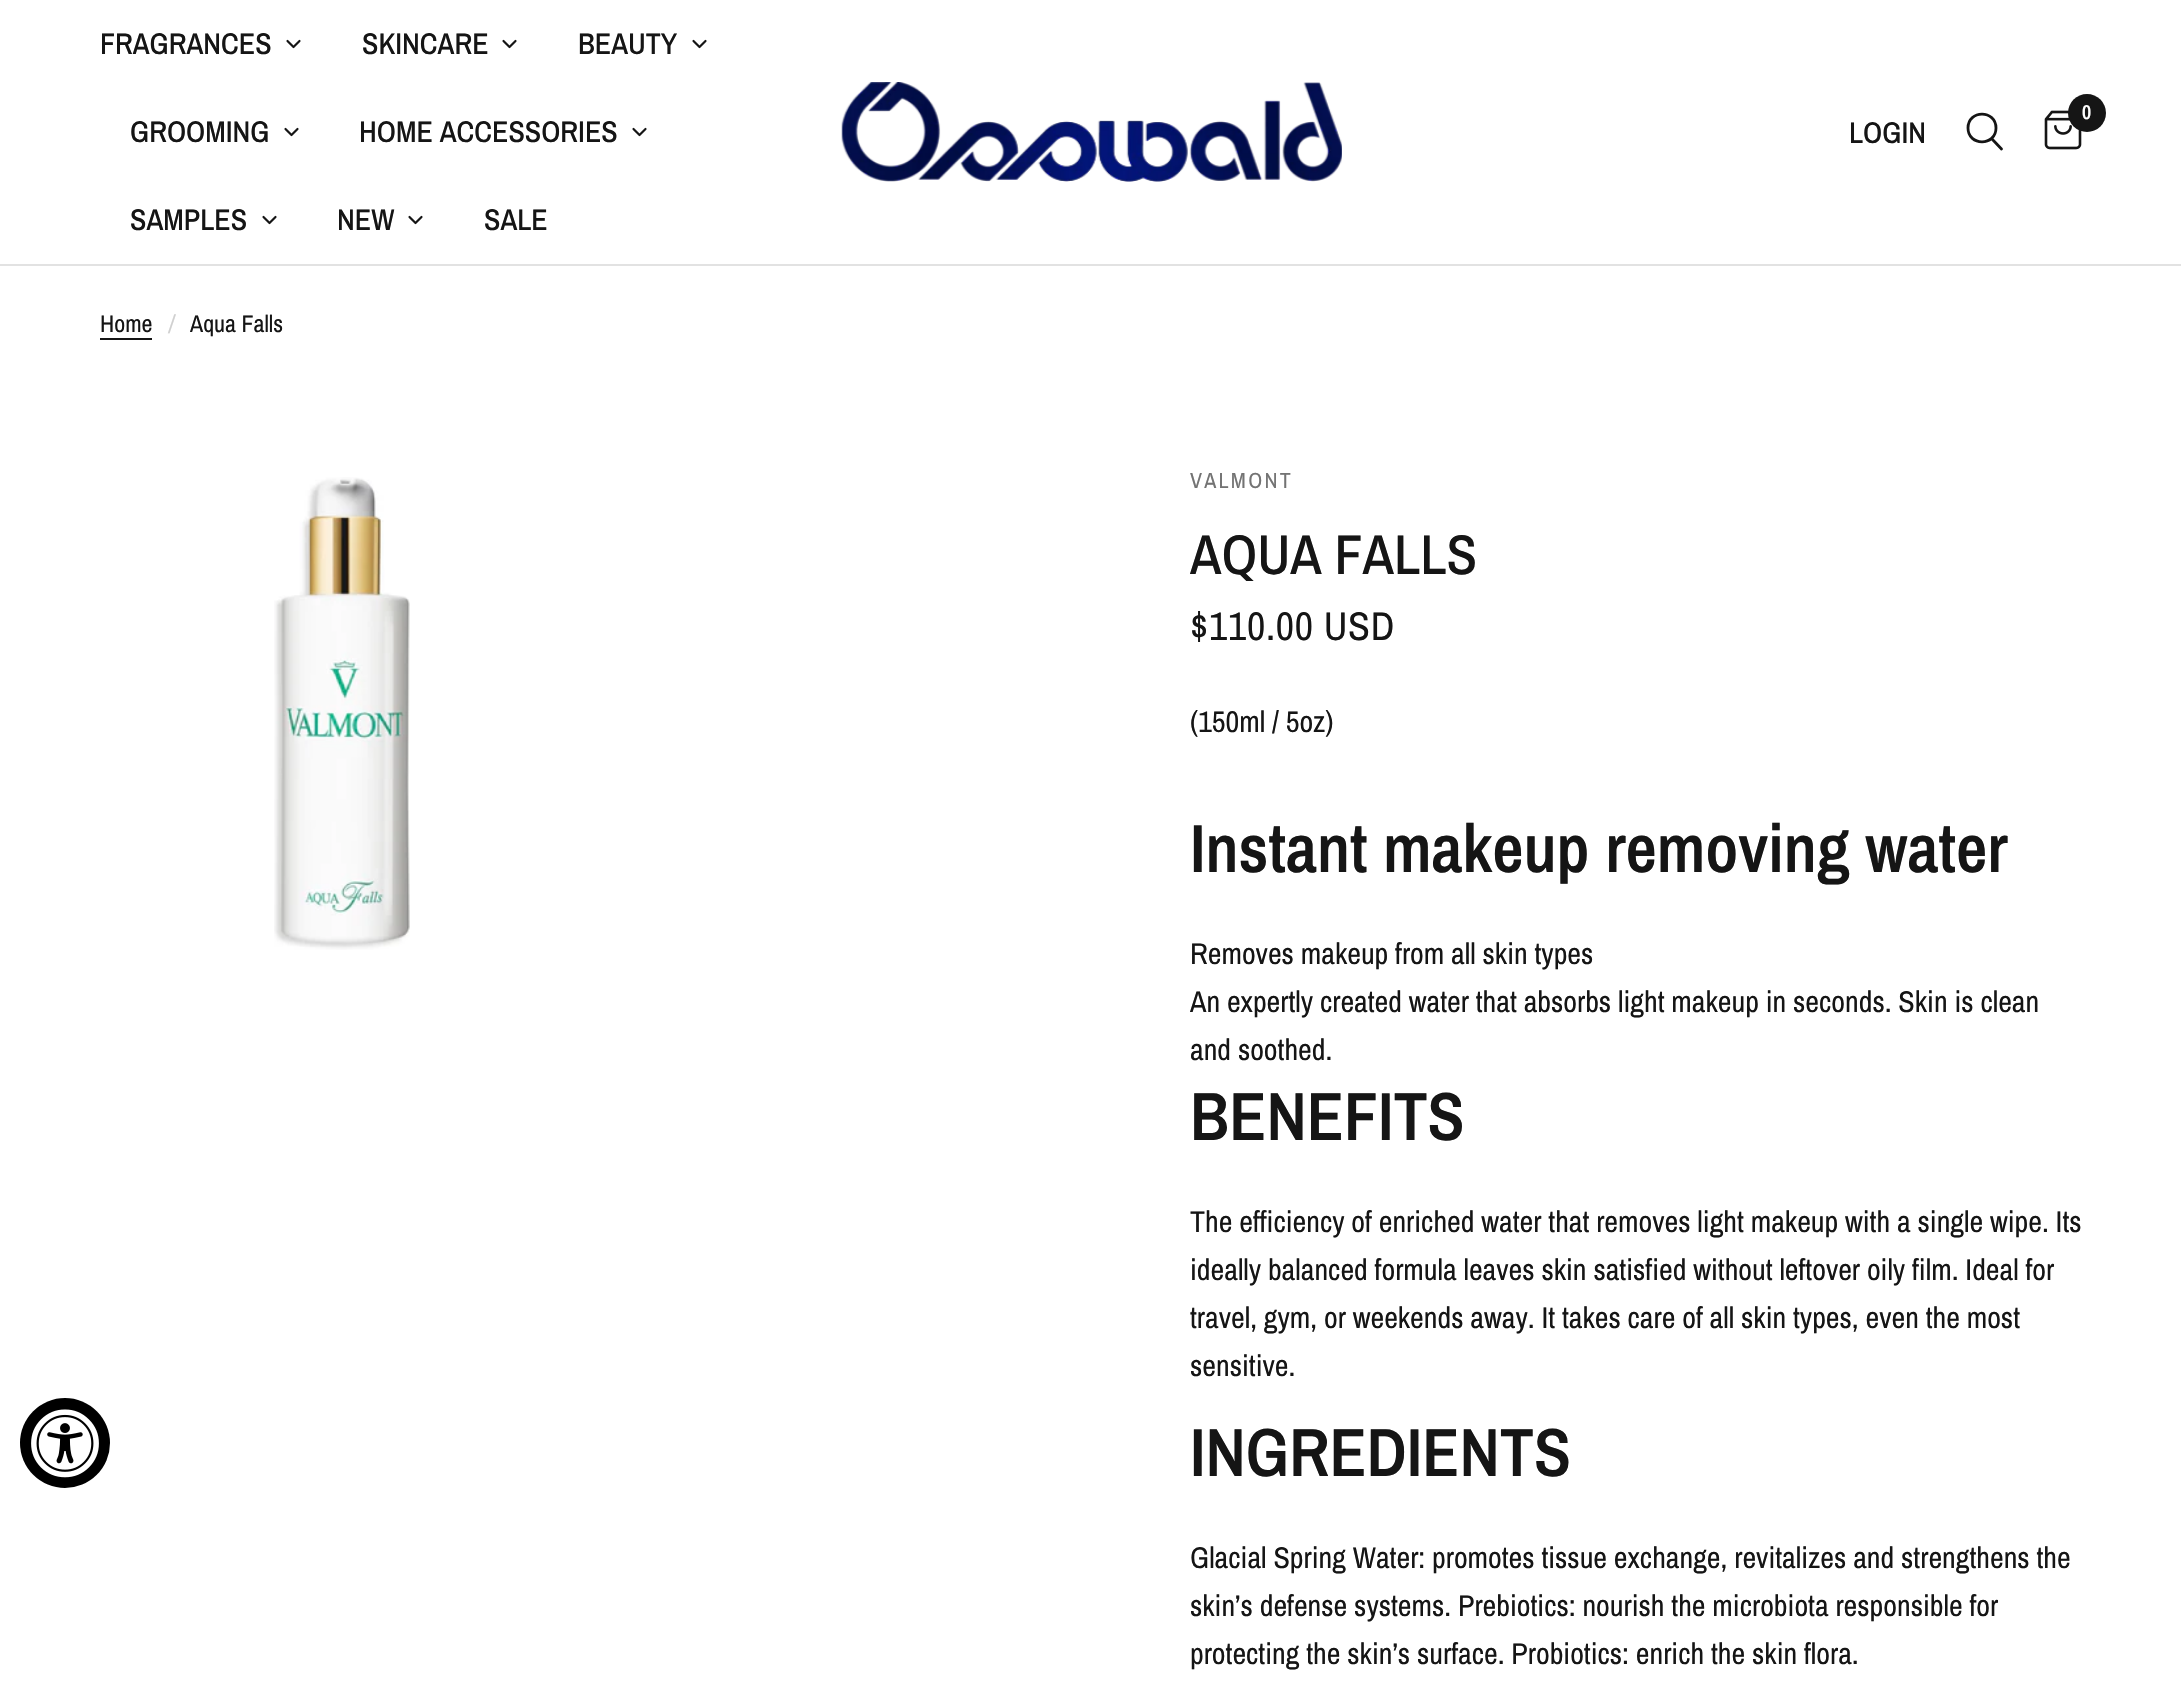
void draw(SkCanvas* canvas) {
    SkPaint paint;
    paint.setAntiAlias(true);
    auto face = [&](const char* family, int weight, float size, bool italic = false) {
        SkFontStyle style(weight, SkFontStyle::kNormal_Width,
            italic ? SkFontStyle::kItalic_Slant : SkFontStyle::kUpright_Slant);
        SkFont result(fontMgr->matchFamilyStyle(family, style), size);
        result.setSubpixel(true);
        return result;
    };
    auto write = [&](const char* s, float x, float y, const SkFont& font, SkColor color) {
        SkPaint ink(SkColor4f::FromColor(color));
        ink.setAntiAlias(true);
        canvas->drawString(s, x, y, font, ink);
    };
    auto writeSpaced = [&](const char* s, float x, float y, const SkFont& font, const SkPaint& ink, float letter, float word) {
        std::vector<SkGlyphID> glyphs(font.countText(s, strlen(s), SkTextEncoding::kUTF8));
        std::vector<float> xs(glyphs.size());
        font.textToGlyphs(s, strlen(s), SkTextEncoding::kUTF8, glyphs);
        font.getXPos(glyphs, xs, x);
        float extra = 0;
        for (size_t i = 0; i < glyphs.size(); i++) {
            xs[i] += extra;
            extra += letter + word * (glyphs[i] == font.unicharToGlyph(' '));
        }
        canvas->drawTextBlob(SkTextBlob::MakeFromPosHGlyphs(glyphs, xs, y, font), 0, 0, ink);
    };
    auto block = [&](float x, float y, float w, float h, SkColor color) {
        SkPaint ink(SkColor4f::FromColor(color));
        ink.setAntiAlias(true);
        canvas->drawRect(SkRect::MakeXYWH(x, y, w, h), ink);
    };
    auto paste = [&](const char* path, float x, float y, float w, float h) {
        auto image = SkImages::DeferredFromEncodedData(SkData::MakeFromFileName(path));
        canvas->drawImageRect(image, SkRect::MakeXYWH(x, y, w, h), SkSamplingOptions());
    };
    canvas->clear(SK_ColorWHITE);
    paint.setColor(SK_ColorBLACK);
    canvas->drawCircle(65, 1443, 45, paint);
    paste("pic1.png", 31, 1409, 68, 69);
    block(0, 264, 2181, 2, SkColorSetRGB(226, 226, 226));
    auto kFont1 = face("Archivo Narrow", 500, 30);
    write("FRAGRANCES", 100, 54, kFont1, SkColorSetRGB(21, 21, 21));
    paint.setStyle(SkPaint::kStroke_Style);
    paint.setStrokeWidth(2.2f);
    paint.setStrokeCap(SkPaint::kRound_Cap);
    paint.setStrokeJoin(SkPaint::kRound_Join);
    paint.setColor(SkColorSetRGB(21, 21, 21));
    canvas->drawPath(SkPathBuilder().moveTo(299.5f, 41).lineTo(293.5f, 47).lineTo(287.5f, 41).detach(), paint);
    write("SKINCARE", 362, 54, kFont1, SkColorSetRGB(21, 21, 21));
    canvas->drawPath(SkPathBuilder().moveTo(515.5f, 41).lineTo(509.5f, 47).lineTo(503.5f, 41).detach(), paint);
    write("BEAUTY", 578, 54, kFont1, SkColorSetRGB(21, 21, 21));
    canvas->drawPath(SkPathBuilder().moveTo(705.5f, 41).lineTo(699.5f, 47).lineTo(693.5f, 41).detach(), paint);
    write("GROOMING", 130, 142, kFont1, SkColorSetRGB(21, 21, 21));
    canvas->drawPath(SkPathBuilder().moveTo(297.5f, 129).lineTo(291.5f, 135).lineTo(285.5f, 129).detach(), paint);
    write("HOME ACCESSORIES", 359, 142, kFont1, SkColorSetRGB(21, 21, 21));
    canvas->drawPath(SkPathBuilder().moveTo(645.5f, 129).lineTo(639.5f, 135).lineTo(633.5f, 129).detach(), paint);
    write("SAMPLES", 130, 230, kFont1, SkColorSetRGB(21, 21, 21));
    canvas->drawPath(SkPathBuilder().moveTo(275.5f, 217).lineTo(269.5f, 223).lineTo(263.5f, 217).detach(), paint);
    write("NEW", 337, 230, kFont1, SkColorSetRGB(21, 21, 21));
    canvas->drawPath(SkPathBuilder().moveTo(421.5f, 217).lineTo(415.5f, 223).lineTo(409.5f, 217).detach(), paint);
    write("SALE", 484, 230, kFont1, SkColorSetRGB(21, 21, 21));
    paste("pic2.png", 841, 82, 501, 100);
    write("LOGIN", 1849, 143, kFont1, SkColorSetRGB(21, 21, 21));
    paint.setStrokeWidth(2.8f);
    canvas->drawPath(SkPathBuilder().moveTo(1992, 139).lineTo(2001.5f, 149).moveTo(1996, 128).cubicTo(1996, 146.5f, 1968, 146.5f, 1968, 128).cubicTo(1968, 109.5f, 1996, 109.5f, 1996, 128).close().detach(), paint);
    paste("pic3.png", 2044, 110, 38, 40);
    paint.setStyle(SkPaint::kFill_Style);
    canvas->drawCircle(2087, 113, 19, paint);
    auto kFont2 = face("Archivo Narrow", 600, 20);
    write("0", 2082, 119, kFont2, SK_ColorWHITE);
    auto kFont3 = face("Archivo Narrow", 400, 24);
    write("Home", 100, 332, kFont3, SkColorSetRGB(21, 21, 21));
    block(100, 338, 52, 2, SkColorSetRGB(21, 21, 21));
    auto kFont4 = face("Archivo Narrow", 400, 24, true);
    write("/", 169, 332, kFont4, SkColorSetRGB(208, 208, 208));
    write("Aqua Falls", 190, 332, kFont3, SkColorSetRGB(21, 21, 21));
    paste("pic4.png", 274, 477, 136, 473);
    auto kFont5 = face("Archivo Narrow", 400, 22);
    paint.setColor(SkColorSetRGB(115, 115, 115));
    writeSpaced("VALMONT", 1190, 488, kFont5, paint, 2.25f, 0);
    auto kFont6 = face("Archivo Narrow", 500, 56);
    write("AQUA FALLS", 1190, 574, kFont6, SkColorSetRGB(21, 21, 21));
    auto kFont7 = face("Archivo Narrow", 400, 40);
    paint.setColor(SkColorSetRGB(21, 21, 21));
    writeSpaced("$110.00 USD", 1190, 640, kFont7, paint, 0.75f, 0);
    auto kFont8 = face("Archivo Narrow", 400, 30);
    write("(150ml / 5oz)", 1190, 732, kFont8, SkColorSetRGB(21, 21, 21));
    auto kFont9 = face("Archivo Narrow", 600, 68);
    write("Instant makeup removing water", 1190, 872, kFont9, SkColorSetRGB(21, 21, 21));
    write("Removes makeup from all skin types", 1190, 964, kFont8, SkColorSetRGB(21, 21, 21));
    write("An expertly created water that absorbs light makeup in seconds. Skin is clean", 1190, 1012, kFont8, SkColorSetRGB(21, 21, 21));
    write("and soothed.", 1190, 1060, kFont8, SkColorSetRGB(21, 21, 21));
    write("BENEFITS", 1190, 1140, kFont9, SkColorSetRGB(21, 21, 21));
    write("The efficiency of enriched water that removes light makeup with a single wipe. Its", 1190, 1232, kFont8, SkColorSetRGB(21, 21, 21));
    write("ideally balanced formula leaves skin satisfied without leftover oily film. Ideal for", 1190, 1280, kFont8, SkColorSetRGB(21, 21, 21));
    write("travel, gym, or weekends away. It takes care of all skin types, even the most", 1190, 1328, kFont8, SkColorSetRGB(21, 21, 21));
    write("sensitive.", 1190, 1376, kFont8, SkColorSetRGB(21, 21, 21));
    write("INGREDIENTS", 1190, 1476, kFont9, SkColorSetRGB(21, 21, 21));
    write("Glacial Spring Water: promotes tissue exchange, revitalizes and strengthens the", 1190, 1568, kFont8, SkColorSetRGB(21, 21, 21));
    write("skin’s defense systems. Prebiotics: nourish the microbiota responsible for", 1190, 1616, kFont8, SkColorSetRGB(21, 21, 21));
    write("protecting the skin’s surface. Probiotics: enrich the skin flora.", 1190, 1664, kFont8, SkColorSetRGB(21, 21, 21));
}
